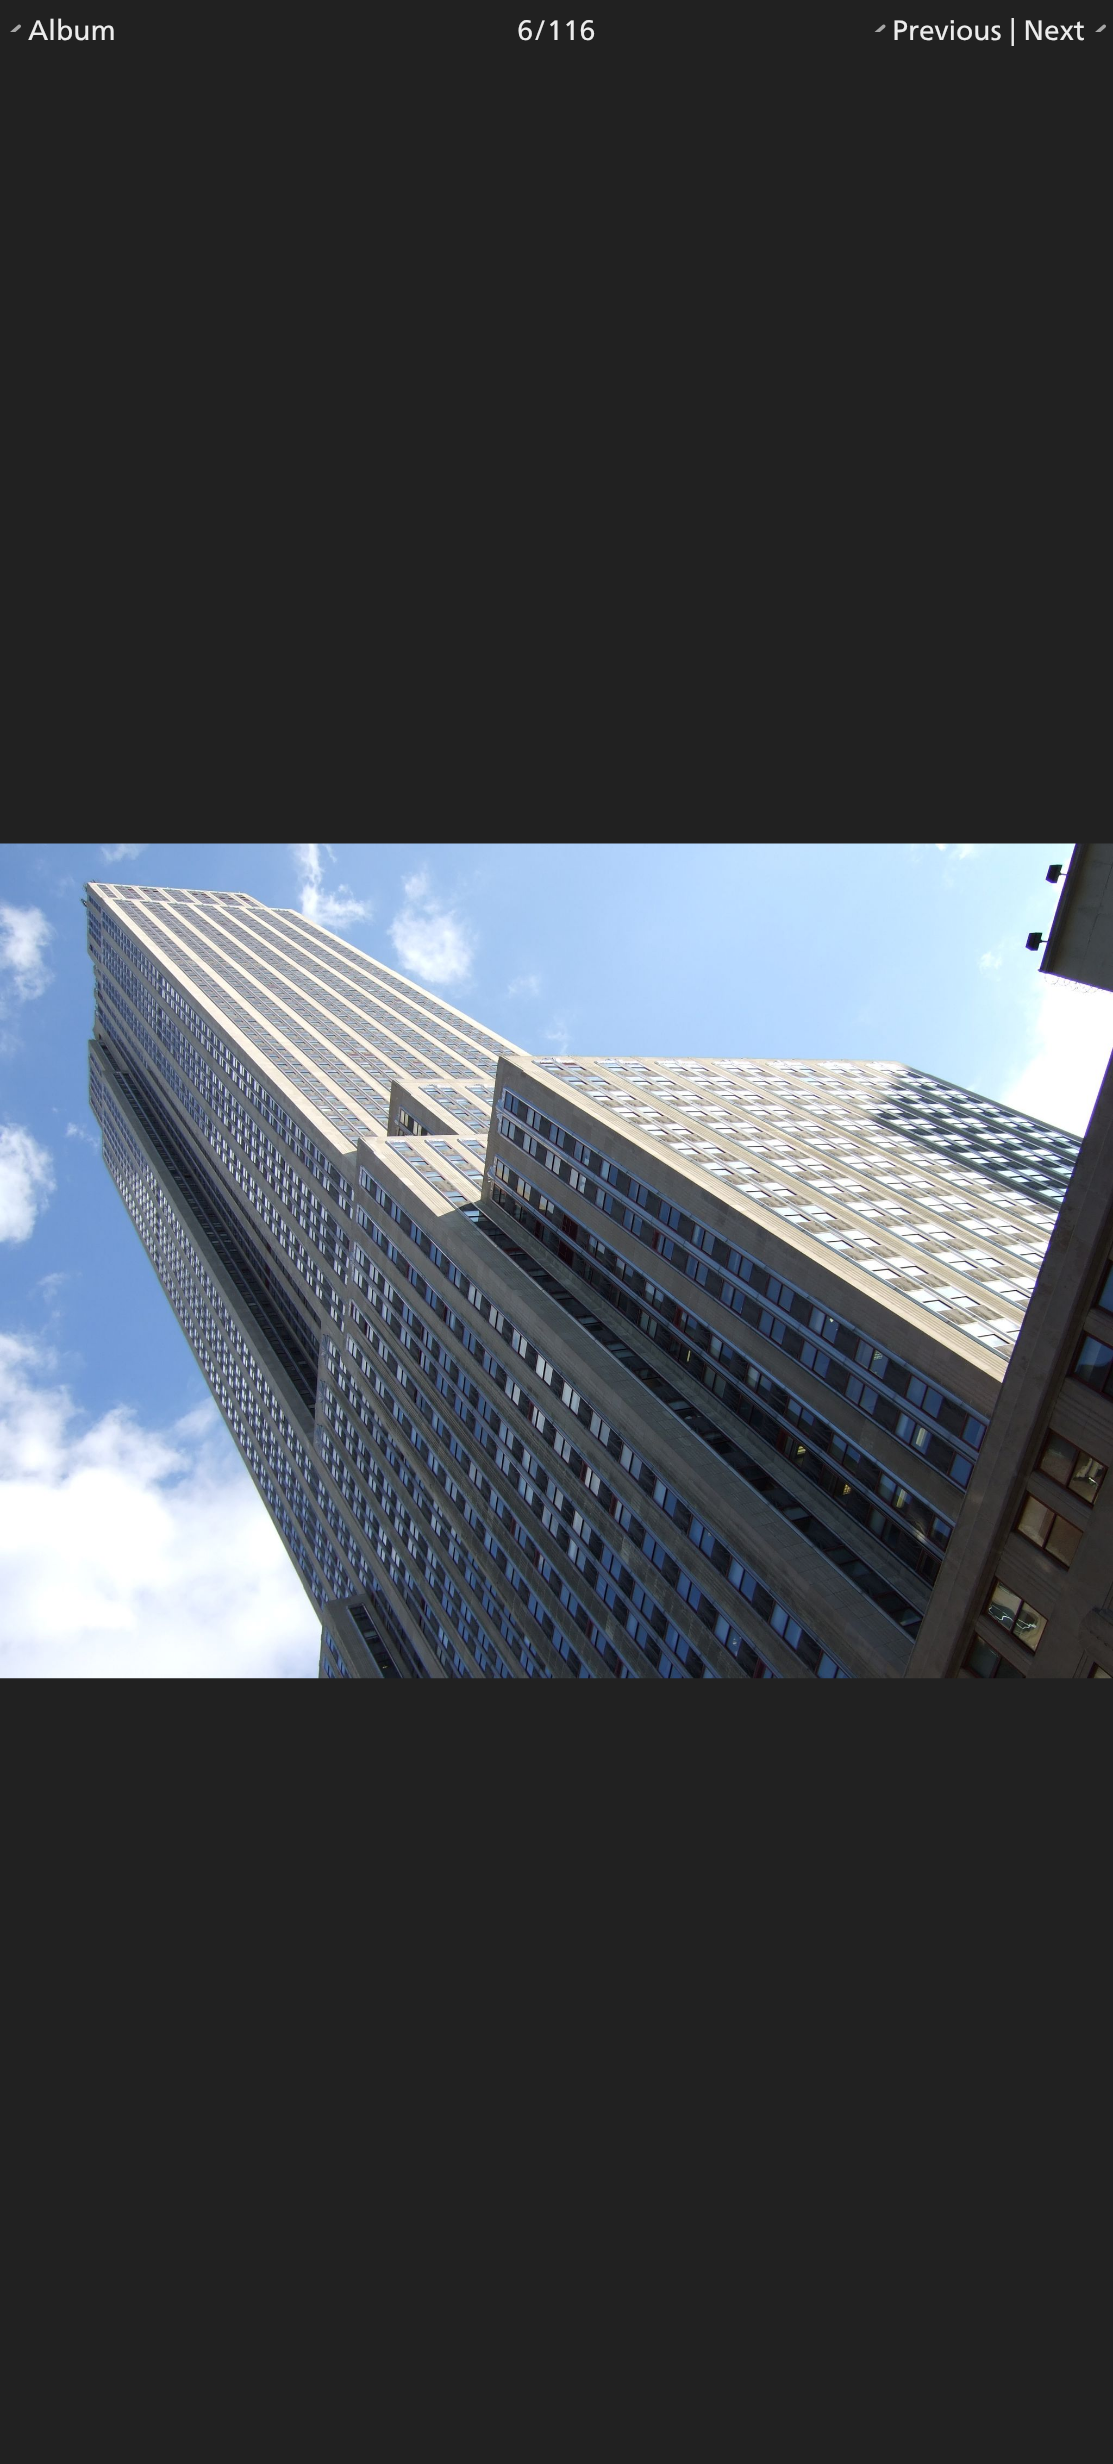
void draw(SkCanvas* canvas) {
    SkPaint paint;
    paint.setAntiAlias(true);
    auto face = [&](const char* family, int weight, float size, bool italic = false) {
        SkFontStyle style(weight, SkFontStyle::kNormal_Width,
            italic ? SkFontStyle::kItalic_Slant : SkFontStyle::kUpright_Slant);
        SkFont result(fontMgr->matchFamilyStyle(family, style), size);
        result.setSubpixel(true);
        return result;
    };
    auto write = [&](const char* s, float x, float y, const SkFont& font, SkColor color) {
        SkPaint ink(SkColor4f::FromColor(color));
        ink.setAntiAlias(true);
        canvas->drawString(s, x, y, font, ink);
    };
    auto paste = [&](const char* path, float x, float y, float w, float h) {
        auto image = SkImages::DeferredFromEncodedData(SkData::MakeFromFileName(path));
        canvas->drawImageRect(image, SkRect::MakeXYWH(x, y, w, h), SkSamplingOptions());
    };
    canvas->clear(SkColorSetRGB(33, 33, 33));
    paste("pic1.png", 10, 24, 11, 8);
    auto kFont1 = face("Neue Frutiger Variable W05", 400, 28);
    write("Album", 28, 40, kFont1, SkColorSetRGB(236, 236, 236));
    write("6/116", 517, 40, kFont1, SkColorSetRGB(236, 236, 236));
    paste("pic2.png", 874, 24, 12, 8);
    write("Previous", 892, 40, kFont1, SkColorSetRGB(236, 236, 236));
    write("| Next", 1009, 40, kFont1, SkColorSetRGB(236, 236, 236));
    paste("pic1.png", 1095, 24, 11, 8);
    paste("pic3.png", 0, 843, 1113, 836);
}
